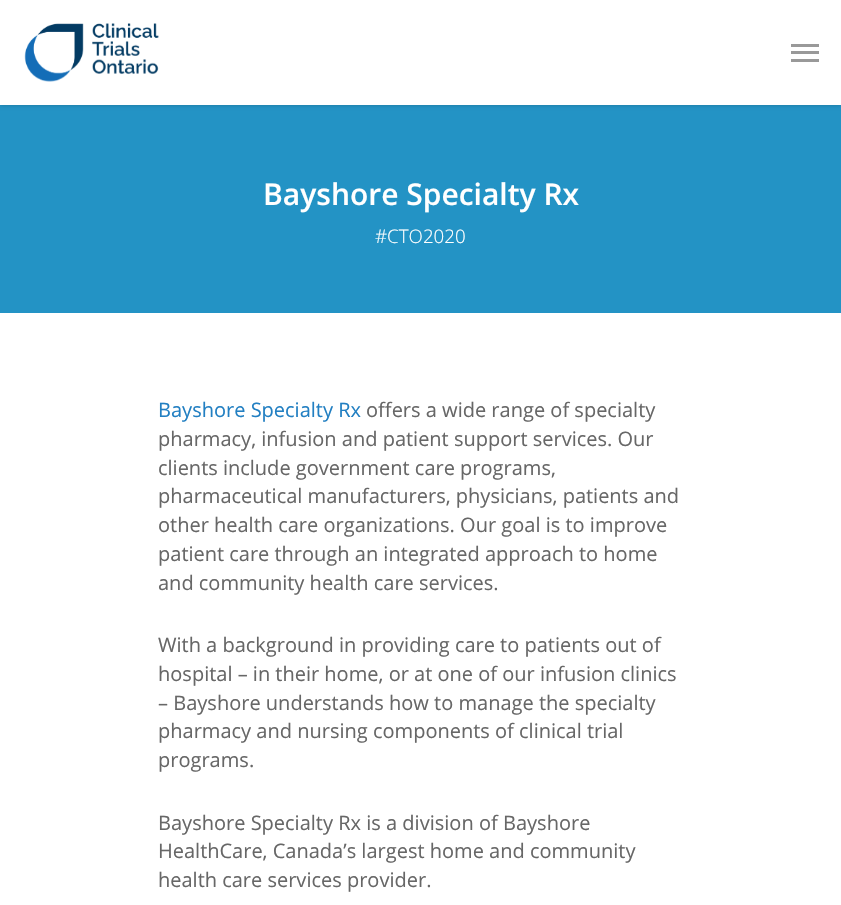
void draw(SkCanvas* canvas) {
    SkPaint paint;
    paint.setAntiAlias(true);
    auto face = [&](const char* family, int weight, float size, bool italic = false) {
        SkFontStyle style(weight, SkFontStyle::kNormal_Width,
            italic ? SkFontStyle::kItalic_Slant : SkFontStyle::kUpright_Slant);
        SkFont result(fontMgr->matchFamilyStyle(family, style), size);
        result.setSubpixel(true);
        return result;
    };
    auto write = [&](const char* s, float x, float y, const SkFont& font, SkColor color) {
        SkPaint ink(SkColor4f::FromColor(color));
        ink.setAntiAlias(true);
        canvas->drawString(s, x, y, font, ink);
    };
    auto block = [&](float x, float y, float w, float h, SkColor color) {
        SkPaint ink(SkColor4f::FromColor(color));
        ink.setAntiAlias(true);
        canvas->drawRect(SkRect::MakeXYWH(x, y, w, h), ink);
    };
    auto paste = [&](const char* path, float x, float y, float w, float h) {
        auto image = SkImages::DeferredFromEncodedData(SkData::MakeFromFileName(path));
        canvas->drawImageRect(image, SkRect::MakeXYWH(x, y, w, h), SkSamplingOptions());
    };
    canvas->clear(SkColorSetRGB(35, 147, 197));
    paint.setColor(SkColorSetARGB(56, 0, 0, 0));
    paint.setMaskFilter(SkMaskFilter::MakeBlur(kNormal_SkBlurStyle, 2));
    canvas->drawRect(SkRect::MakeXYWH(0, 0, 841, 105), paint);
    paint.setMaskFilter(nullptr);
    block(0, 0, 841, 105, SK_ColorWHITE);
    paste("pic1.png", 24, 23, 135, 59);
    block(791, 44, 28, 3, SkColorSetRGB(153, 153, 153));
    block(791, 59, 28, 3, SkColorSetRGB(153, 153, 153));
    block(791, 51, 28, 3, SkColorSetRGB(153, 153, 153));
    auto kFont1 = face("Open Sans", 600, 30);
    write("Bayshore Specialty Rx", 263, 205, kFont1, SK_ColorWHITE);
    auto kFont2 = face("Open Sans", 300, 18.75f);
    write("#CTO2020", 375, 243, kFont2, SK_ColorWHITE);
    block(0, 313, 841, 592, SK_ColorWHITE);
    auto kFont3 = face("Open Sans", 400, 20);
    write("Bayshore Specialty Rx", 158, 417, kFont3, SkColorSetRGB(34, 127, 194));
    write("offers a wide range of specialty", 366, 417, kFont3, SkColorSetRGB(103, 103, 103));
    write("pharmacy, infusion and patient support services. Our", 158, 446, kFont3, SkColorSetRGB(103, 103, 103));
    write("clients include government care programs,", 158, 475, kFont3, SkColorSetRGB(103, 103, 103));
    write("pharmaceutical manufacturers, physicians, patients and", 158, 503, kFont3, SkColorSetRGB(103, 103, 103));
    write("other health care organizations. Our goal is to improve", 158, 532, kFont3, SkColorSetRGB(103, 103, 103));
    write("patient care through an integrated approach to home", 158, 561, kFont3, SkColorSetRGB(103, 103, 103));
    write("and community health care services.", 158, 590, kFont3, SkColorSetRGB(103, 103, 103));
    write("With a background in providing care to patients out of", 158, 652, kFont3, SkColorSetRGB(103, 103, 103));
    write("hospital – in their home, or at one of our infusion clinics", 158, 681, kFont3, SkColorSetRGB(103, 103, 103));
    write("– Bayshore understands how to manage the specialty", 158, 710, kFont3, SkColorSetRGB(103, 103, 103));
    write("pharmacy and nursing components of clinical trial", 158, 738, kFont3, SkColorSetRGB(103, 103, 103));
    write("programs.", 158, 767, kFont3, SkColorSetRGB(103, 103, 103));
    write("Bayshore Specialty Rx is a division of Bayshore", 158, 830, kFont3, SkColorSetRGB(103, 103, 103));
    write("HealthCare, Canada’s largest home and community", 158, 858, kFont3, SkColorSetRGB(103, 103, 103));
    write("health care services provider.", 158, 887, kFont3, SkColorSetRGB(103, 103, 103));
}
